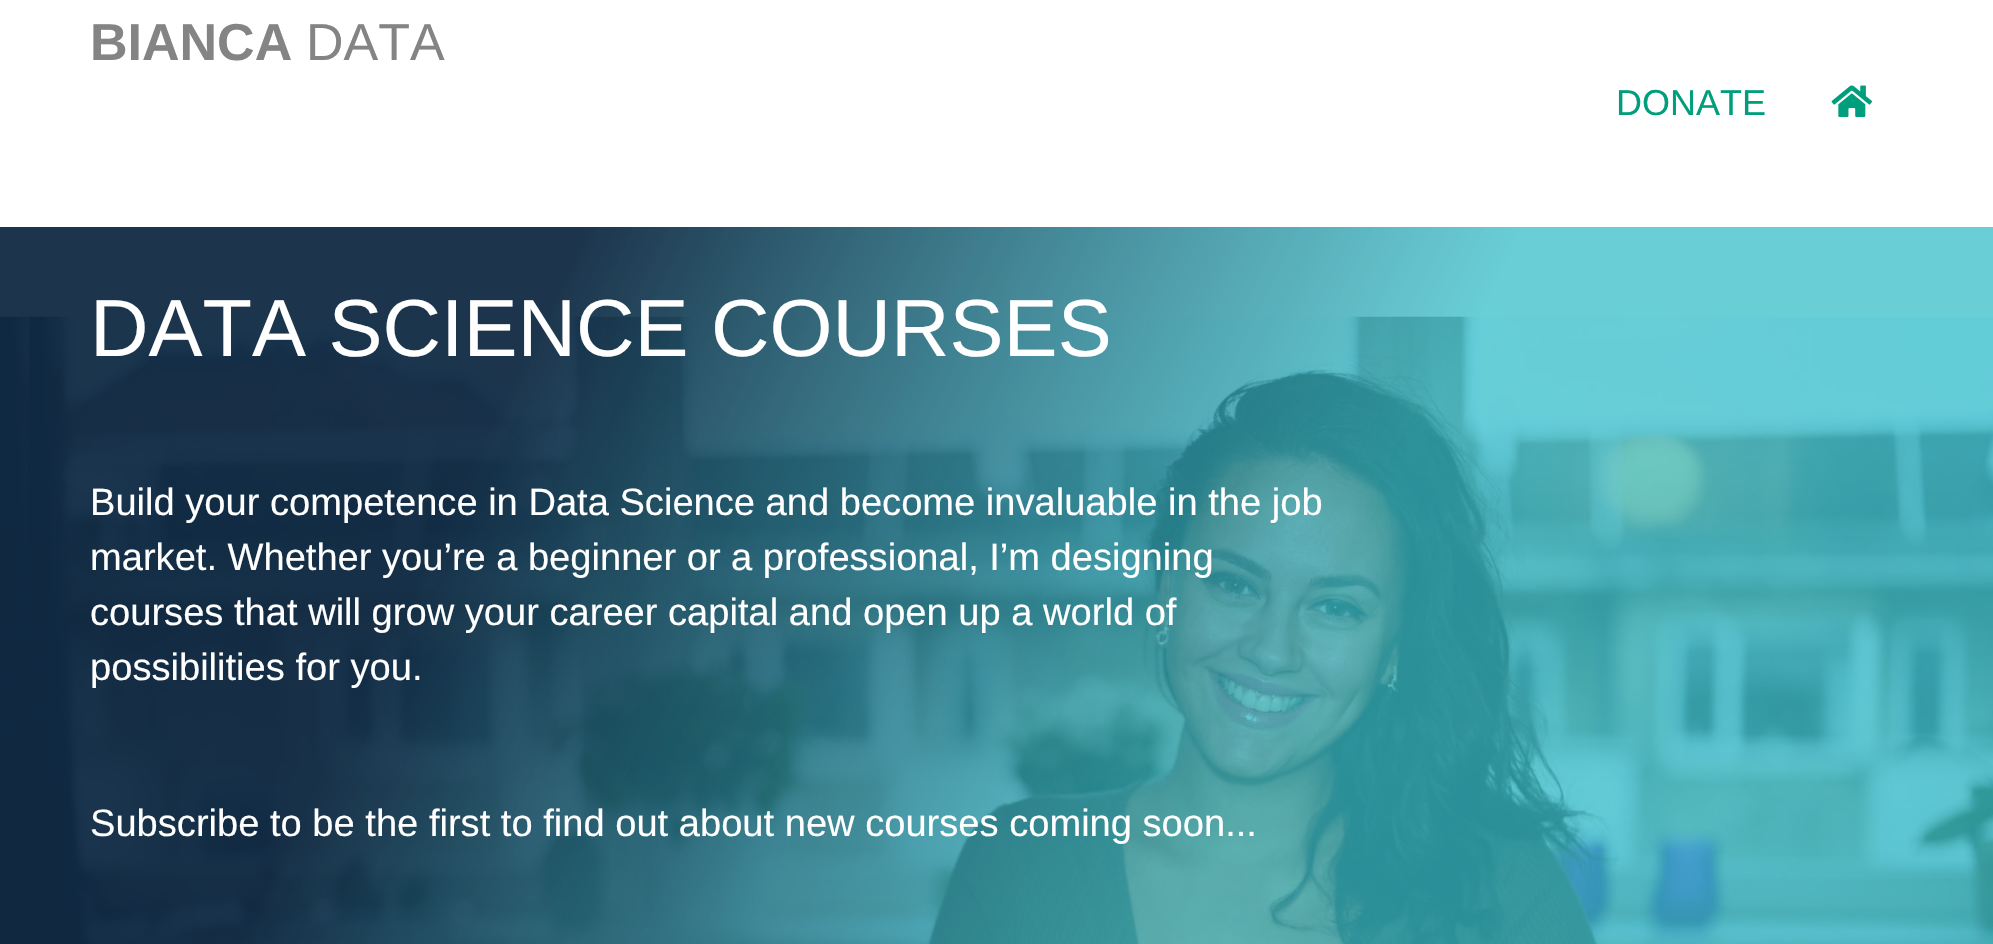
void draw(SkCanvas* canvas) {
    SkPaint paint;
    paint.setAntiAlias(true);
    auto face = [&](const char* family, int weight, float size, bool italic = false) {
        SkFontStyle style(weight, SkFontStyle::kNormal_Width,
            italic ? SkFontStyle::kItalic_Slant : SkFontStyle::kUpright_Slant);
        SkFont result(fontMgr->matchFamilyStyle(family, style), size);
        result.setSubpixel(true);
        return result;
    };
    auto write = [&](const char* s, float x, float y, const SkFont& font, SkColor color) {
        SkPaint ink(SkColor4f::FromColor(color));
        ink.setAntiAlias(true);
        canvas->drawString(s, x, y, font, ink);
    };
    auto writeSpaced = [&](const char* s, float x, float y, const SkFont& font, const SkPaint& ink, float letter, float word) {
        std::vector<SkGlyphID> glyphs(font.countText(s, strlen(s), SkTextEncoding::kUTF8));
        std::vector<float> xs(glyphs.size());
        font.textToGlyphs(s, strlen(s), SkTextEncoding::kUTF8, glyphs);
        font.getXPos(glyphs, xs, x);
        float extra = 0;
        for (size_t i = 0; i < glyphs.size(); i++) {
            xs[i] += extra;
            extra += letter + word * (glyphs[i] == font.unicharToGlyph(' '));
        }
        canvas->drawTextBlob(SkTextBlob::MakeFromPosHGlyphs(glyphs, xs, y, font), 0, 0, ink);
    };
    auto paste = [&](const char* path, float x, float y, float w, float h) {
        auto image = SkImages::DeferredFromEncodedData(SkData::MakeFromFileName(path));
        canvas->drawImageRect(image, SkRect::MakeXYWH(x, y, w, h), SkSamplingOptions());
    };
    canvas->clear(SK_ColorWHITE);
    auto kFont1 = face("Liberation Sans", 700, 52);
    write("BIANCA", 90, 60, kFont1, SkColorSetRGB(132, 132, 132));
    auto kFont2 = face("Liberation Sans", 400, 52);
    write("DATA", 306, 60, kFont2, SkColorSetRGB(132, 132, 132));
    auto kFont3 = face("Liberation Sans", 400, 36);
    write("DONATE", 1616, 115, kFont3, SkColorSetRGB(0, 158, 124));
    paste("pic1.png", 1831, 85, 41, 32);
    paste("pic2.png", 0, 316, 1993, 628);
    {
        const SkColor colors[] = {SkColorSetARGB(242, 16, 42, 67), SkColorSetARGB(191, 56, 190, 201)};
        const float stops[] = {0.23f, 0.6f};
        const SkPoint ends[] = {{-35, 298}, {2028, 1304}};
        paint.setShader(SkGradientShader::MakeLinear(ends, colors, stops, 2, SkTileMode::kClamp));
        paint.setAlpha(255);
    }
    canvas->drawRect(SkRect::MakeXYWH(0, 227, 1993, 717), paint);
    auto kFont4 = face("Liberation Sans", 400, 81);
    write("DATA SCIENCE COURSES", 90, 356, kFont4, SK_ColorWHITE);
    auto kFont5 = face("Liberation Sans", 400, 38.1f);
    write("Build your competence in Data Science and become invaluable in the job", 90, 515, kFont5, SK_ColorWHITE);
    paint.setShader(nullptr);
    paint.setColor(SK_ColorWHITE);
    writeSpaced("market. Whether you’re a beginner or a professional, I’m designing", 90, 570, kFont5, paint, 0, -0.1f);
    write("courses that will grow your career capital and open up a world of", 90, 625, kFont5, SK_ColorWHITE);
    write("possibilities for you.", 90, 680, kFont5, SK_ColorWHITE);
    write("Subscribe to be the first to find out about new courses coming soon...", 90, 836, kFont5, SK_ColorWHITE);
}
